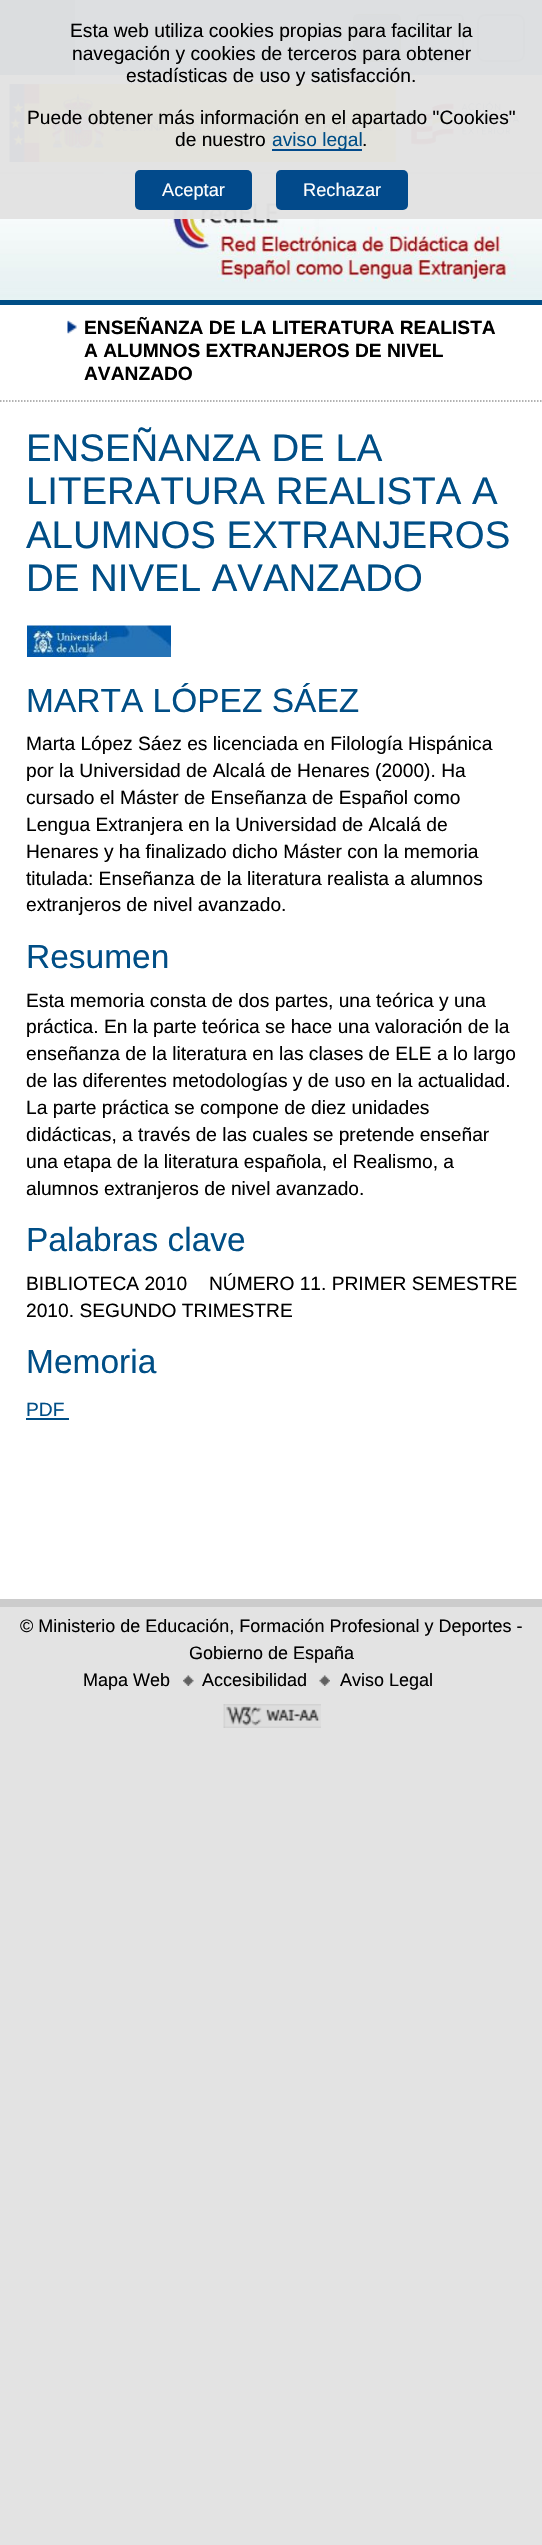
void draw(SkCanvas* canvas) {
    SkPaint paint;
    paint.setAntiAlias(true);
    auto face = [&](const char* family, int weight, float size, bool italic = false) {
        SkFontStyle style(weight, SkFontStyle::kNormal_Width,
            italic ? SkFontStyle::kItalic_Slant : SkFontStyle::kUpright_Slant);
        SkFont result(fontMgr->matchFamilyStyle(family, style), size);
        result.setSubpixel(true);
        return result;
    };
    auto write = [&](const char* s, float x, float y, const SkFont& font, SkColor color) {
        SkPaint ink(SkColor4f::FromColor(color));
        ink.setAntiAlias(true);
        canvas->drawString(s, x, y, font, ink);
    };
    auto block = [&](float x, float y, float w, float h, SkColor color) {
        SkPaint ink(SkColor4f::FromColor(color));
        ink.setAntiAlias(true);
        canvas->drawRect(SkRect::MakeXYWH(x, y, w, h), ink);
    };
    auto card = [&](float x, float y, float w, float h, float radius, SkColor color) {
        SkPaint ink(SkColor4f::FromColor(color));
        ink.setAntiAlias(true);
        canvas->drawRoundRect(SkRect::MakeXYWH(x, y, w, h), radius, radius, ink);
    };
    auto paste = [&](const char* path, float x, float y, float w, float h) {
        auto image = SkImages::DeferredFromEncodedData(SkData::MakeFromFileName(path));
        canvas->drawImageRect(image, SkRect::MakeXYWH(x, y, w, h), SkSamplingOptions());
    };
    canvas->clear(SkColorSetRGB(227, 227, 227));
    block(75, 0, 467, 75, SkColorSetRGB(39, 123, 186));
    block(0, 0, 75, 75, SkColorSetRGB(0, 63, 109));
    paint.setStyle(SkPaint::kStroke_Style);
    paint.setStrokeWidth(2);
    paint.setColor(SkColorSetRGB(0, 36, 62));
    canvas->drawRoundRect(SkRect::MakeXYWH(354, 15, 46, 46), 4, 4, paint);
    block(354, 15, 45, 45, SkColorSetRGB(0, 63, 109));
    paint.setColor(SkColorSetRGB(0, 63, 109));
    canvas->drawRoundRect(SkRect::MakeXYWH(417, 15, 46, 46), 4, 4, paint);
    canvas->drawRoundRect(SkRect::MakeXYWH(478, 15, 46, 46), 7, 7, paint);
    block(0, 75, 542, 98, SK_ColorWHITE);
    paste("pic1.png", 9, 84, 524, 78);
    paste("pic2.png", 0, 172, 542, 128);
    block(0, 0, 542, 219, SkColorSetARGB(247, 226, 226, 226));
    auto kFont1 = face("Liberation Sans", 400, 19.2f);
    write("Esta web utiliza cookies propias para facilitar la", 70, 37, kFont1, SK_ColorBLACK);
    write("navegación y cookies de terceros para obtener", 72, 60, kFont1, SK_ColorBLACK);
    write("estadísticas de uso y satisfacción.", 126, 82, kFont1, SK_ColorBLACK);
    write("Puede obtener más información en el apartado \"Cookies\"", 27, 124, kFont1, SK_ColorBLACK);
    write("de nuestro", 175, 146, kFont1, SK_ColorBLACK);
    block(272, 149, 90, 2, SkColorSetRGB(2, 74, 139));
    write("aviso legal", 272, 146, kFont1, SkColorSetRGB(0, 78, 134));
    write(".", 362, 146, kFont1, SK_ColorBLACK);
    card(135, 170, 117, 40, 5, SkColorSetRGB(2, 74, 139));
    auto kFont2 = face("Liberation Sans", 400, 18.25f);
    write("Aceptar", 162, 196, kFont2, SK_ColorWHITE);
    card(276, 170, 132, 40, 5, SkColorSetRGB(2, 74, 139));
    write("Rechazar", 303, 196, kFont2, SK_ColorWHITE);
    block(0, 300, 542, 5, SkColorSetRGB(0, 78, 134));
    block(0, 305, 542, 1294, SK_ColorWHITE);
    paint.setStrokeWidth(1.5f);
    paint.setColor(SkColorSetRGB(153, 153, 153));
    paint.setPathEffect(SkDashPathEffect::Make({{1.5f, 1.5f}}, 0));
    canvas->drawPath(SkPathBuilder().moveTo(0, 401).lineTo(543, 401).detach(), paint);
    paint.setPathEffect(nullptr);
    paste("pic3.png", 67, 320, 10, 14);
    auto kFont3 = face("Liberation Sans", 700, 19.2f);
    write("ENSEÑANZA DE LA LITERATURA REALISTA", 84, 334, kFont3, SK_ColorBLACK);
    write("A ALUMNOS EXTRANJEROS DE NIVEL", 84, 357, kFont3, SK_ColorBLACK);
    write("AVANZADO", 84, 380, kFont3, SK_ColorBLACK);
    auto kFont4 = face("Liberation Sans", 400, 38.4f);
    write("ENSEÑANZA DE LA", 26, 461, kFont4, SkColorSetRGB(0, 78, 134));
    write("LITERATURA REALISTA A", 26, 504, kFont4, SkColorSetRGB(0, 78, 134));
    write("ALUMNOS EXTRANJEROS", 26, 548, kFont4, SkColorSetRGB(0, 78, 134));
    write("DE NIVEL AVANZADO", 26, 591, kFont4, SkColorSetRGB(0, 78, 134));
    paste("pic4.png", 27, 625, 144, 32);
    auto kFont5 = face("Liberation Sans", 400, 33.5f);
    write("MARTA LÓPEZ SÁEZ", 26, 712, kFont5, SkColorSetRGB(0, 78, 134));
    write("Marta López Sáez es licenciada en Filología Hispánica", 26, 750, kFont1, SK_ColorBLACK);
    write("por la Universidad de Alcalá de Henares (2000). Ha", 26, 777, kFont1, SK_ColorBLACK);
    write("cursado el Máster de Enseñanza de Español como", 26, 804, kFont1, SK_ColorBLACK);
    write("Lengua Extranjera en la Universidad de Alcalá de", 26, 831, kFont1, SK_ColorBLACK);
    write("Henares y ha finalizado dicho Máster con la memoria", 26, 858, kFont1, SK_ColorBLACK);
    write("titulada: Enseñanza de la literatura realista a alumnos", 26, 885, kFont1, SK_ColorBLACK);
    write("extranjeros de nivel avanzado.", 26, 911, kFont1, SK_ColorBLACK);
    write("Resumen", 26, 968, kFont5, SkColorSetRGB(0, 78, 134));
    write("Esta memoria consta de dos partes, una teórica y una", 26, 1007, kFont1, SK_ColorBLACK);
    write("práctica. En la parte teórica se hace una valoración de la", 26, 1033, kFont1, SK_ColorBLACK);
    write("enseñanza de la literatura en las clases de ELE a lo largo", 26, 1060, kFont1, SK_ColorBLACK);
    write("de las diferentes metodologías y de uso en la actualidad.", 26, 1087, kFont1, SK_ColorBLACK);
    write("La parte práctica se compone de diez unidades", 26, 1114, kFont1, SK_ColorBLACK);
    write("didácticas, a través de las cuales se pretende enseñar", 26, 1141, kFont1, SK_ColorBLACK);
    write("una etapa de la literatura española, el Realismo, a", 26, 1168, kFont1, SK_ColorBLACK);
    write("alumnos extranjeros de nivel avanzado.", 26, 1195, kFont1, SK_ColorBLACK);
    write("Palabras clave", 26, 1251, kFont5, SkColorSetRGB(0, 78, 134));
    write("BIBLIOTECA 2010", 26, 1290, kFont1, SK_ColorBLACK);
    write("NÚMERO 11. PRIMER SEMESTRE", 209, 1290, kFont1, SK_ColorBLACK);
    write("2010. SEGUNDO TRIMESTRE", 26, 1317, kFont1, SK_ColorBLACK);
    write("Memoria", 26, 1373, kFont5, SkColorSetRGB(0, 78, 134));
    write("PDF", 26, 1416, kFont1, SkColorSetRGB(0, 78, 134));
    block(26, 1418, 43, 2, SkColorSetRGB(0, 78, 134));
    block(0, 1599, 542, 8, SkColorSetRGB(204, 204, 204));
    auto kFont6 = face("Liberation Sans", 400, 18);
    write("© Ministerio de Educación, Formación Profesional y Deportes -", 20, 1632, kFont6, SK_ColorBLACK);
    write("Gobierno de España", 189, 1659, kFont6, SK_ColorBLACK);
    paste("pic5.png", 183, 1675, 11, 11);
    write("Mapa Web", 83, 1686, kFont6, SK_ColorBLACK);
    paste("pic6.png", 319, 1675, 11, 11);
    write("Accesibilidad", 202, 1686, kFont6, SK_ColorBLACK);
    write("Aviso Legal", 340, 1686, kFont6, SK_ColorBLACK);
    paste("pic7.png", 223, 1704, 98, 24);
}
